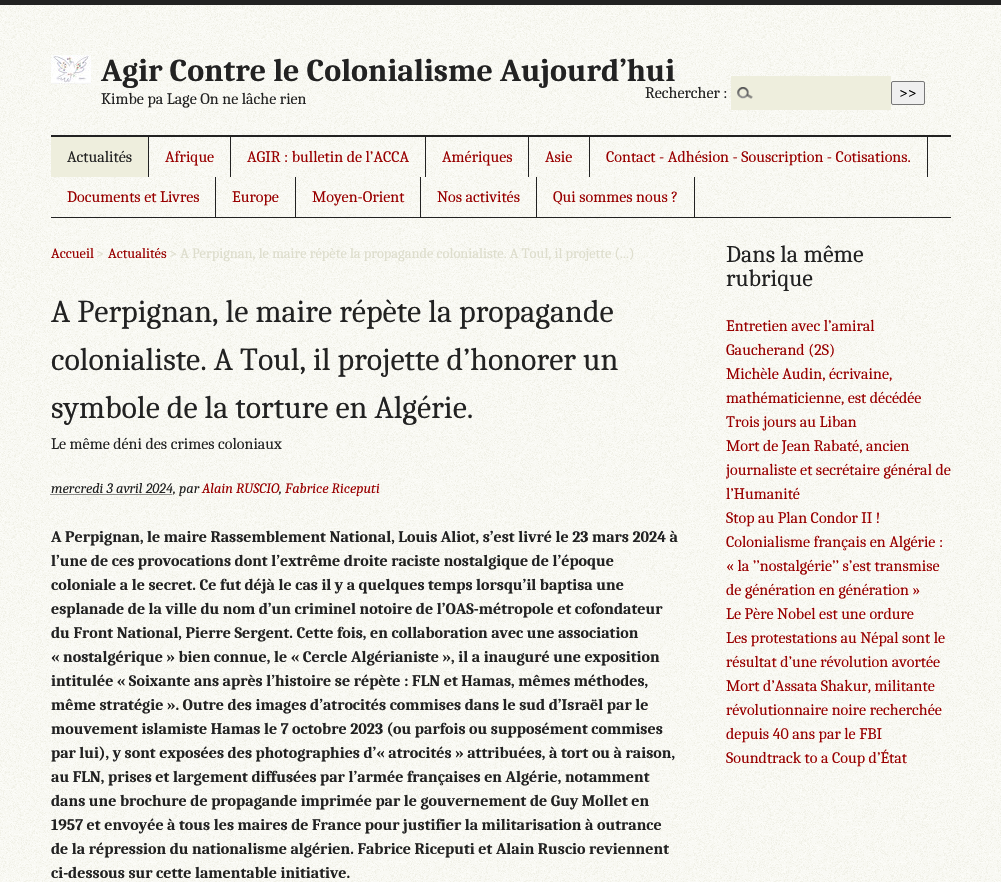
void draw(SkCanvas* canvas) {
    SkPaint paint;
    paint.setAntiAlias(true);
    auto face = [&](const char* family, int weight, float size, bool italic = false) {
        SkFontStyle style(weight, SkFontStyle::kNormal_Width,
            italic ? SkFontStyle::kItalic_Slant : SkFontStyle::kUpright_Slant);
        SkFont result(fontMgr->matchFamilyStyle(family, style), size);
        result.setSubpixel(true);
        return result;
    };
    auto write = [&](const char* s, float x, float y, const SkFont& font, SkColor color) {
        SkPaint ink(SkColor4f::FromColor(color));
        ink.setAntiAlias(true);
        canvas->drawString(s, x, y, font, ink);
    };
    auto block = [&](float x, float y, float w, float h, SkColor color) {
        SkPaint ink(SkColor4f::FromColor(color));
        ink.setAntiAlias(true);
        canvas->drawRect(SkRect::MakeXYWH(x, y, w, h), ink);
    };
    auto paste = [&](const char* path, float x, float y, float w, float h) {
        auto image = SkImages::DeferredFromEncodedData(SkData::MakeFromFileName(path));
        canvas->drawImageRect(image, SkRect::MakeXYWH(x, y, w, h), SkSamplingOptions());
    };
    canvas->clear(SK_ColorWHITE);
    paste("pic1.png", 0, 5, 1001, 877);
    block(0, 0, 1001, 5, SkColorSetRGB(34, 34, 34));
    block(51, 135, 900, 2, SkColorSetRGB(34, 34, 34));
    paste("pic2.png", 51, 55, 40, 29);
    auto kFont1 = face("Caladea", 700, 32);
    write("Agir Contre le Colonialisme Aujourd’hui", 101, 81, kFont1, SkColorSetRGB(34, 34, 34));
    auto kFont2 = face("Caladea", 400, 16);
    write("Kimbe pa Lage On ne lâche rien", 101, 104, kFont2, SkColorSetRGB(34, 34, 34));
    auto kFont3 = face("Caladea", 400, 14.4f);
    write("Accueil", 51, 258, kFont3, SkColorSetRGB(153, 0, 0));
    write(">", 96, 258, kFont3, SkColorSetRGB(221, 221, 204));
    write("Actualités", 108, 258, kFont3, SkColorSetRGB(153, 0, 0));
    write("> A Perpignan, le maire répète la propagande colonialiste. A Toul, il projette (...)", 169, 258, kFont3, SkColorSetRGB(221, 221, 204));
    auto kFont4 = face("Caladea", 400, 32);
    write("A Perpignan, le maire répète la propagande", 51, 322, kFont4, SkColorSetRGB(34, 34, 34));
    write("colonialiste. A Toul, il projette d’honorer un", 51, 370, kFont4, SkColorSetRGB(34, 34, 34));
    write("symbole de la torture en Algérie.", 51, 418, kFont4, SkColorSetRGB(34, 34, 34));
    write("Le même déni des crimes coloniaux", 51, 449, kFont2, SkColorSetRGB(34, 34, 34));
    paint.setStyle(SkPaint::kStroke_Style);
    paint.setStrokeWidth(1);
    paint.setColor(SkColorSetRGB(34, 34, 34));
    paint.setPathEffect(SkDashPathEffect::Make({{1, 1}}, 0));
    canvas->drawPath(SkPathBuilder().moveTo(50.5f, 494.5f).lineTo(172.5f, 494.5f).detach(), paint);
    paint.setPathEffect(nullptr);
    auto kFont5 = face("Caladea", 400, 14.4f, true);
    write("mercredi 3 avril 2024, par", 51, 493, kFont5, SkColorSetRGB(34, 34, 34));
    write("Alain RUSCIO", 202, 493, kFont5, SkColorSetRGB(153, 0, 0));
    write("Fabrice Riceputi", 285, 493, kFont5, SkColorSetRGB(153, 0, 0));
    write(",", 279, 493, kFont5, SkColorSetRGB(34, 34, 34));
    auto kFont6 = face("Caladea", 700, 16);
    write("A Perpignan, le maire Rassemblement National, Louis Aliot, s’est livré le 23 mars 2024 à", 51, 542, kFont6, SkColorSetRGB(34, 34, 34));
    write("l’une de ces provocations dont l’extrême droite raciste nostalgique de l’époque", 51, 566, kFont6, SkColorSetRGB(34, 34, 34));
    write("coloniale a le secret. Ce fut déjà le cas il y a quelques temps lorsqu’il baptisa une", 51, 590, kFont6, SkColorSetRGB(34, 34, 34));
    write("esplanade de la ville du nom d’un criminel notoire de l’OAS-métropole et cofondateur", 51, 614, kFont6, SkColorSetRGB(34, 34, 34));
    write("du Front National, Pierre Sergent. Cette fois, en collaboration avec une association", 51, 638, kFont6, SkColorSetRGB(34, 34, 34));
    write("« nostalgérique » bien connue, le « Cercle Algérianiste », il a inauguré une exposition", 51, 662, kFont6, SkColorSetRGB(34, 34, 34));
    write("intitulée « Soixante ans après l’histoire se répète : FLN et Hamas, mêmes méthodes,", 51, 686, kFont6, SkColorSetRGB(34, 34, 34));
    write("même stratégie ». Outre des images d’atrocités commises dans le sud d’Israël par le", 51, 710, kFont6, SkColorSetRGB(34, 34, 34));
    write("mouvement islamiste Hamas le 7 octobre 2023 (ou parfois ou supposément commises", 51, 734, kFont6, SkColorSetRGB(34, 34, 34));
    write("par lui), y sont exposées des photographies d’« atrocités » attribuées, à tort ou à raison,", 51, 758, kFont6, SkColorSetRGB(34, 34, 34));
    write("au FLN, prises et largement diffusées par l’armée françaises en Algérie, notamment", 51, 782, kFont6, SkColorSetRGB(34, 34, 34));
    write("dans une brochure de propagande imprimée par le gouvernement de Guy Mollet en", 51, 806, kFont6, SkColorSetRGB(34, 34, 34));
    write("1957 et envoyée à tous les maires de France pour justifier la militarisation à outrance", 51, 830, kFont6, SkColorSetRGB(34, 34, 34));
    write("de la répression du nationalisme algérien. Fabrice Riceputi et Alain Ruscio reviennent", 51, 854, kFont6, SkColorSetRGB(34, 34, 34));
    write("ci-dessous sur cette lamentable initiative.", 51, 878, kFont6, SkColorSetRGB(34, 34, 34));
    write("Rechercher :", 645, 98, kFont2, SkColorSetRGB(34, 34, 34));
    block(731, 76, 160, 34, SkColorSetRGB(238, 238, 221));
    paste("pic3.png", 737, 87, 16, 12);
    paint.setStyle(SkPaint::kFill_Style);
    paint.setColor(SkColorSetRGB(239, 239, 239));
    canvas->drawRoundRect(SkRect::MakeXYWH(891.5f, 81.5f, 33, 23), 1.5f, 1.5f, paint);
    paint.setStyle(SkPaint::kStroke_Style);
    paint.setColor(SkColorSetRGB(118, 118, 118));
    canvas->drawRoundRect(SkRect::MakeXYWH(891.5f, 81.5f, 33, 23), 1.5f, 1.5f, paint);
    write(">>", 899, 98, kFont2, SK_ColorBLACK);
    auto kFont7 = face("Caladea", 400, 24);
    write("Dans la même", 726, 262, kFont7, SkColorSetRGB(34, 34, 34));
    write("rubrique", 726, 286, kFont7, SkColorSetRGB(34, 34, 34));
    write("Entretien avec l’amiral", 726, 331, kFont2, SkColorSetRGB(153, 0, 0));
    write("Gaucherand (2S)", 726, 355, kFont2, SkColorSetRGB(153, 0, 0));
    write("Michèle Audin, écrivaine,", 726, 379, kFont2, SkColorSetRGB(153, 0, 0));
    write("mathématicienne, est décédée", 726, 403, kFont2, SkColorSetRGB(153, 0, 0));
    canvas->save();
    canvas->clipRect(SkRect::MakeXYWH(726, 242, 225, 552));
    write("Trois jours au Liban", 726, 427, kFont2, SkColorSetRGB(153, 0, 0));
    canvas->restore();
    write("Mort de Jean Rabaté, ancien", 726, 451, kFont2, SkColorSetRGB(153, 0, 0));
    canvas->save();
    canvas->clipRect(SkRect::MakeXYWH(726, 242, 225, 552));
    write("journaliste et secrétaire général de", 726, 475, kFont2, SkColorSetRGB(153, 0, 0));
    canvas->restore();
    write("l’Humanité", 726, 499, kFont2, SkColorSetRGB(153, 0, 0));
    canvas->save();
    canvas->clipRect(SkRect::MakeXYWH(726, 242, 225, 552));
    write("Stop au Plan Condor II !", 726, 523, kFont2, SkColorSetRGB(153, 0, 0));
    canvas->restore();
    write("Colonialisme français en Algérie :", 726, 547, kFont2, SkColorSetRGB(153, 0, 0));
    write("« la ’’nostalgérie’’ s’est transmise", 726, 571, kFont2, SkColorSetRGB(153, 0, 0));
    write("de génération en génération »", 726, 595, kFont2, SkColorSetRGB(153, 0, 0));
    write("Le Père Nobel est une ordure", 726, 619, kFont2, SkColorSetRGB(153, 0, 0));
    write("Les protestations au Népal sont le", 726, 643, kFont2, SkColorSetRGB(153, 0, 0));
    write("résultat d’une révolution avortée", 726, 667, kFont2, SkColorSetRGB(153, 0, 0));
    write("Mort d’Assata Shakur, militante", 726, 691, kFont2, SkColorSetRGB(153, 0, 0));
    write("révolutionnaire noire recherchée", 726, 715, kFont2, SkColorSetRGB(153, 0, 0));
    write("depuis 40 ans par le FBI", 726, 739, kFont2, SkColorSetRGB(153, 0, 0));
    canvas->save();
    canvas->clipRect(SkRect::MakeXYWH(726, 242, 225, 552));
    write("Soundtrack to a Coup d’État", 726, 763, kFont2, SkColorSetRGB(153, 0, 0));
    canvas->restore();
    block(51, 217, 900, 1, SkColorSetRGB(34, 34, 34));
    block(51, 137, 97, 40, SkColorSetRGB(238, 238, 221));
    block(148, 137, 1, 40, SkColorSetRGB(34, 34, 34));
    write("Actualités", 67, 162, kFont2, SkColorSetRGB(34, 34, 34));
    block(230, 137, 1, 40, SkColorSetRGB(34, 34, 34));
    write("Afrique", 165, 162, kFont2, SkColorSetRGB(153, 0, 0));
    block(425, 137, 1, 40, SkColorSetRGB(34, 34, 34));
    write("AGIR : bulletin de l’ACCA", 247, 162, kFont2, SkColorSetRGB(153, 0, 0));
    block(528, 137, 1, 40, SkColorSetRGB(34, 34, 34));
    write("Amériques", 442, 162, kFont2, SkColorSetRGB(153, 0, 0));
    block(589, 137, 1, 40, SkColorSetRGB(34, 34, 34));
    write("Asie", 545, 162, kFont2, SkColorSetRGB(153, 0, 0));
    block(927, 137, 1, 40, SkColorSetRGB(34, 34, 34));
    write("Contact - Adhésion - Souscription - Cotisations.", 606, 162, kFont2, SkColorSetRGB(153, 0, 0));
    block(215, 177, 1, 40, SkColorSetRGB(34, 34, 34));
    write("Documents et Livres", 67, 202, kFont2, SkColorSetRGB(153, 0, 0));
    block(295, 177, 1, 40, SkColorSetRGB(34, 34, 34));
    write("Europe", 232, 202, kFont2, SkColorSetRGB(153, 0, 0));
    block(420, 177, 1, 40, SkColorSetRGB(34, 34, 34));
    write("Moyen-Orient", 312, 202, kFont2, SkColorSetRGB(153, 0, 0));
    block(536, 177, 1, 40, SkColorSetRGB(34, 34, 34));
    write("Nos activités", 437, 202, kFont2, SkColorSetRGB(153, 0, 0));
    block(694, 177, 1, 40, SkColorSetRGB(34, 34, 34));
    write("Qui sommes nous ?", 553, 202, kFont2, SkColorSetRGB(153, 0, 0));
}
